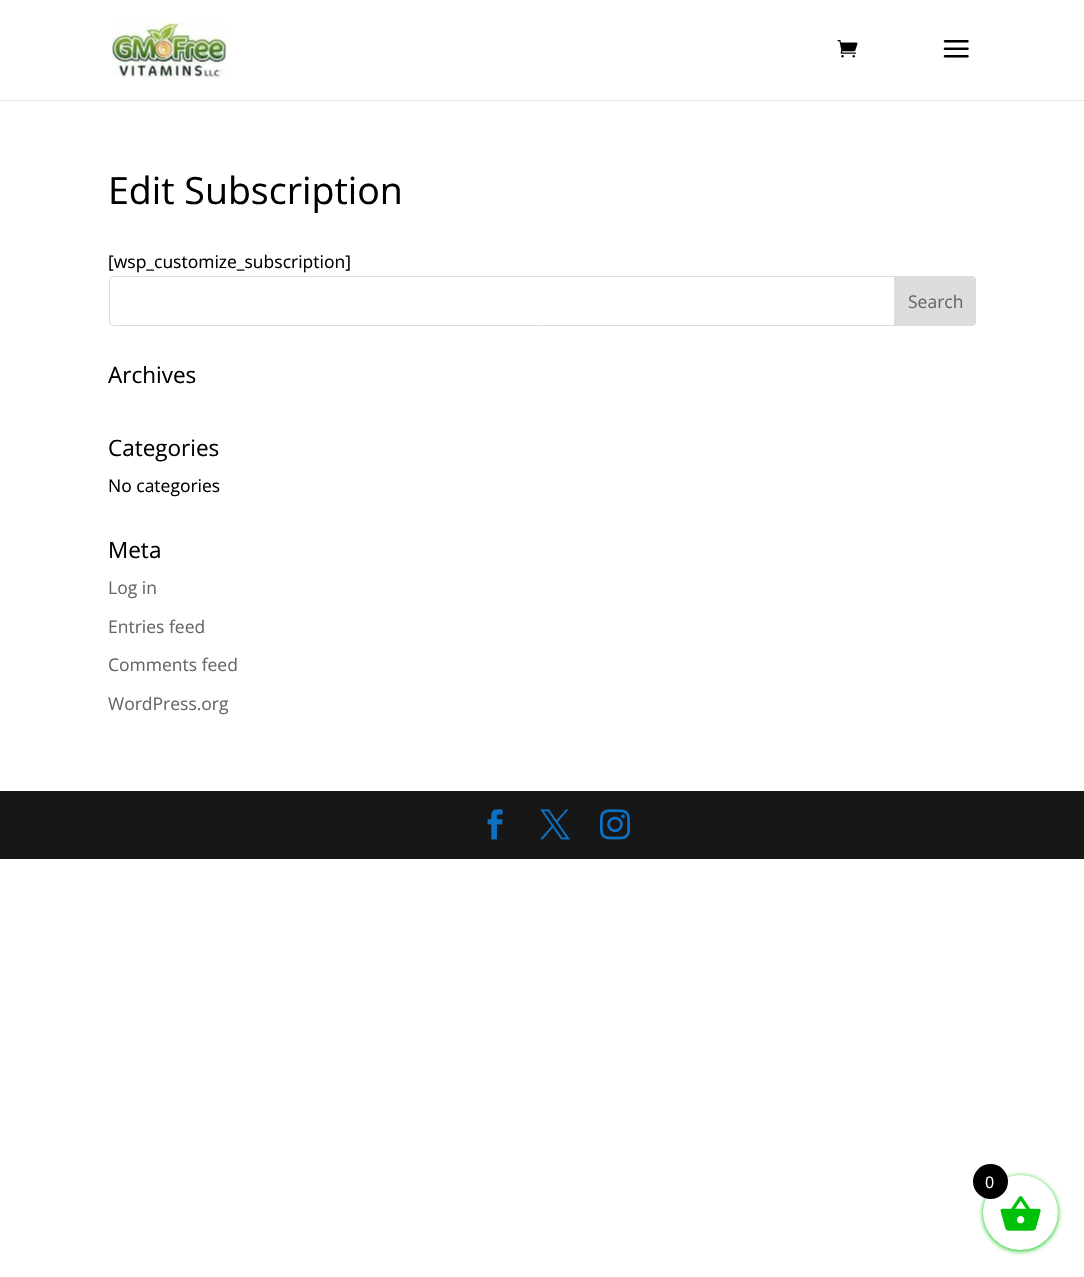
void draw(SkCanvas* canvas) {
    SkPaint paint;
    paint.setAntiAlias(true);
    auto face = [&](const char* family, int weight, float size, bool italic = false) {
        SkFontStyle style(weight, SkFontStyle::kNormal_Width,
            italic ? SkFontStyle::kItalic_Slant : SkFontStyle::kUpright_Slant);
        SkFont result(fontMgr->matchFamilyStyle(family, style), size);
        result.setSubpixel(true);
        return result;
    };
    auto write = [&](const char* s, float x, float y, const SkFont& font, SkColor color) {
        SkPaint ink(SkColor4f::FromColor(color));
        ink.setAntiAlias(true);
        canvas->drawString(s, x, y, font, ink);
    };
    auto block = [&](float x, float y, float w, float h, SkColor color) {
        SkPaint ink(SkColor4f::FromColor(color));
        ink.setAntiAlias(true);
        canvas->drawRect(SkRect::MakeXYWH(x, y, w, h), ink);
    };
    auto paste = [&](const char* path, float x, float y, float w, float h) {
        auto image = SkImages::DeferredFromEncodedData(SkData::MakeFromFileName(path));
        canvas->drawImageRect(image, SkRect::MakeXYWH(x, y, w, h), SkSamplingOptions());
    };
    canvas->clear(SK_ColorWHITE);
    block(0, 100, 1084, 1, SkColorSetRGB(230, 230, 230));
    paste("pic1.png", 112, 22, 115, 56);
    paste("pic2.png", 837, 40, 21, 18);
    paste("pic3.png", 943, 40, 26, 18);
    auto kFont1 = face("Open Sans", 400, 37.5f);
    write("Edit Subscription", 108, 204, kFont1, SK_ColorBLACK);
    auto kFont2 = face("Open Sans", 400, 17.5f);
    write("[wsp_customize_subscription]", 108, 268, kFont2, SK_ColorBLACK);
    paint.setStyle(SkPaint::kStroke_Style);
    paint.setStrokeWidth(1);
    paint.setColor(SkColorSetRGB(221, 221, 221));
    canvas->drawRoundRect(SkRect::MakeXYWH(109.5f, 276.5f, 866, 49), 3.5f, 3.5f, paint);
    paint.setStyle(SkPaint::kFill_Style);
    canvas->drawPath(SkPathBuilder().moveTo(894.5f, 276.5f).lineTo(972, 276.5f).cubicTo(974, 276.5f, 975.5f, 278, 975.5f, 280).lineTo(975.5f, 322).cubicTo(975.5f, 324, 974, 325.5f, 972, 325.5f).lineTo(894.5f, 325.5f).close().detach(), paint);
    paint.setStyle(SkPaint::kStroke_Style);
    canvas->drawPath(SkPathBuilder().moveTo(894.5f, 276.5f).lineTo(972, 276.5f).cubicTo(974, 276.5f, 975.5f, 278, 975.5f, 280).lineTo(975.5f, 322).cubicTo(975.5f, 324, 974, 325.5f, 972, 325.5f).lineTo(894.5f, 325.5f).close().detach(), paint);
    write("Search", 908, 308, kFont2, SkColorSetRGB(102, 102, 102));
    auto kFont3 = face("Open Sans", 400, 22.5f);
    write("Archives", 108, 383, kFont3, SK_ColorBLACK);
    write("Categories", 108, 456, kFont3, SK_ColorBLACK);
    write("No categories", 108, 492, kFont2, SK_ColorBLACK);
    write("Meta", 108, 558, kFont3, SK_ColorBLACK);
    write("Log in", 108, 594, kFont2, SkColorSetRGB(102, 102, 102));
    write("Entries feed", 108, 633, kFont2, SkColorSetRGB(102, 102, 102));
    write("Comments feed", 108, 671, kFont2, SkColorSetRGB(102, 102, 102));
    write("WordPress.org", 108, 710, kFont2, SkColorSetRGB(102, 102, 102));
    block(0, 791, 1084, 68, SkColorSetRGB(23, 23, 23));
    paste("pic4.png", 487, 809, 16, 31);
    paste("pic5.png", 540, 809, 30, 31);
    paste("pic6.png", 600, 809, 30, 31);
    paint.setStyle(SkPaint::kFill_Style);
    paint.setColor(SkColorSetRGB(0, 193, 9));
    paint.setMaskFilter(SkMaskFilter::MakeBlur(kNormal_SkBlurStyle, 2.5f));
    canvas->drawRoundRect(SkRect::MakeXYWH(983, 1176, 75, 75), 37.5f, 37.5f, paint);
    paint.setMaskFilter(nullptr);
    paint.setColor(SK_ColorWHITE);
    canvas->drawCircle(1020.5f, 1212.5f, 37.5f, paint);
    paste("pic7.png", 1000, 1196, 41, 35);
    paint.setColor(SK_ColorBLACK);
    canvas->drawCircle(990.5f, 1181.5f, 17.5f, paint);
    auto kFont4 = face("Open Sans", 400, 16);
    write("0", 985, 1188, kFont4, SK_ColorWHITE);
}
